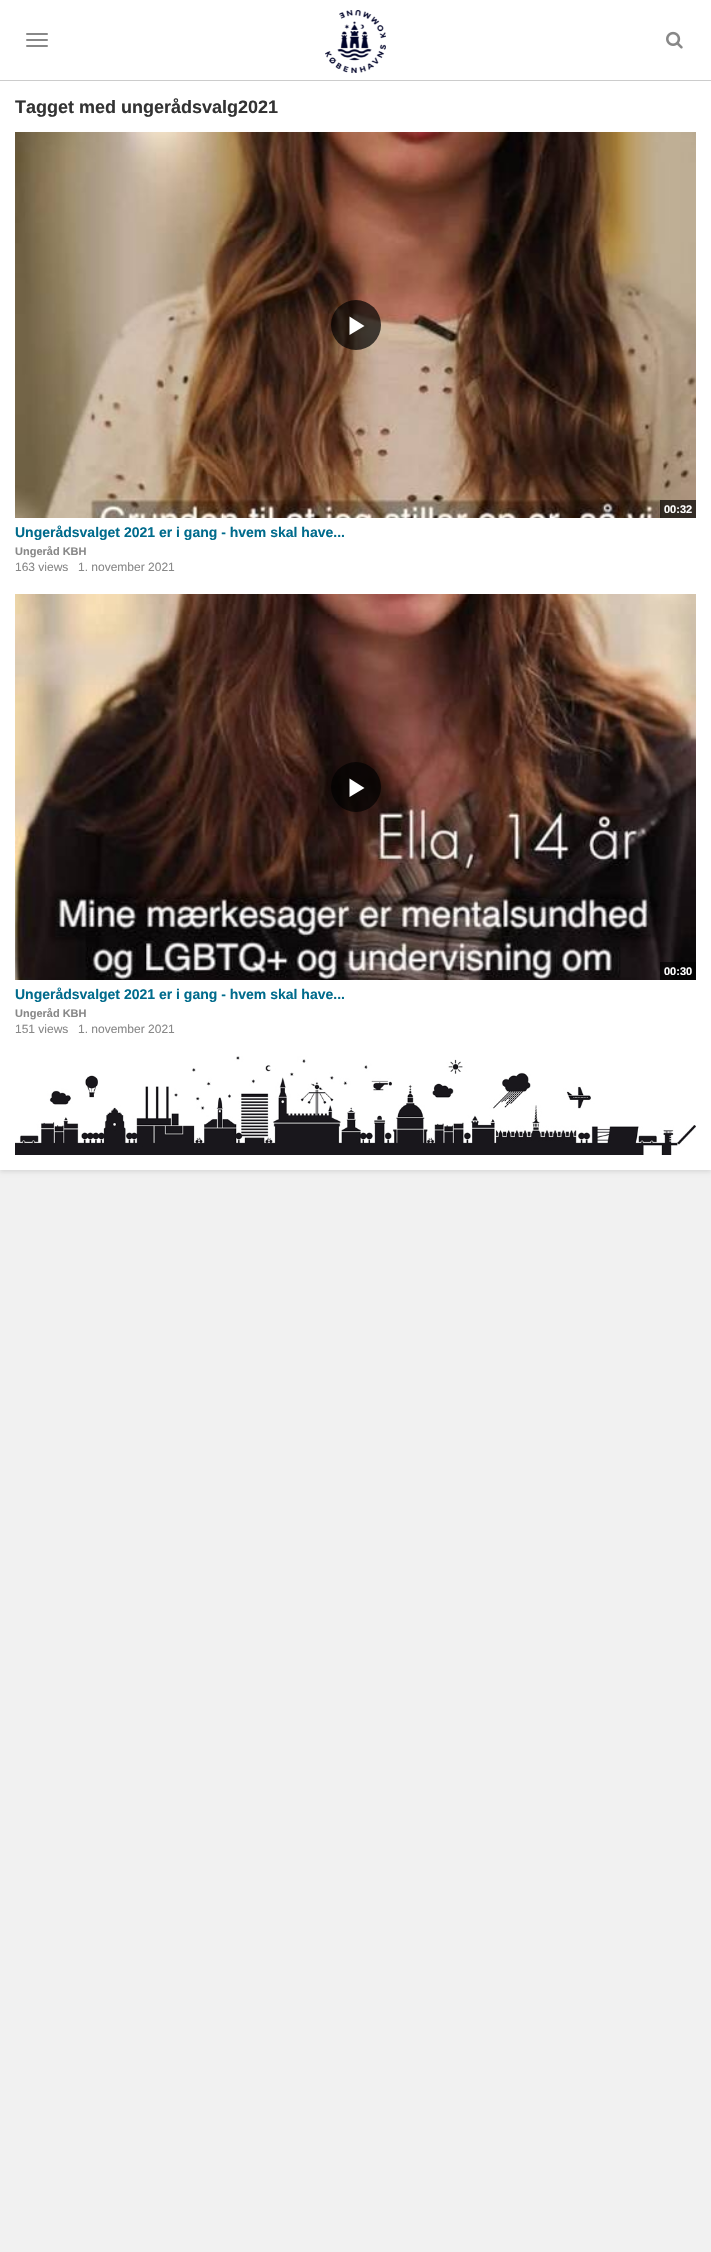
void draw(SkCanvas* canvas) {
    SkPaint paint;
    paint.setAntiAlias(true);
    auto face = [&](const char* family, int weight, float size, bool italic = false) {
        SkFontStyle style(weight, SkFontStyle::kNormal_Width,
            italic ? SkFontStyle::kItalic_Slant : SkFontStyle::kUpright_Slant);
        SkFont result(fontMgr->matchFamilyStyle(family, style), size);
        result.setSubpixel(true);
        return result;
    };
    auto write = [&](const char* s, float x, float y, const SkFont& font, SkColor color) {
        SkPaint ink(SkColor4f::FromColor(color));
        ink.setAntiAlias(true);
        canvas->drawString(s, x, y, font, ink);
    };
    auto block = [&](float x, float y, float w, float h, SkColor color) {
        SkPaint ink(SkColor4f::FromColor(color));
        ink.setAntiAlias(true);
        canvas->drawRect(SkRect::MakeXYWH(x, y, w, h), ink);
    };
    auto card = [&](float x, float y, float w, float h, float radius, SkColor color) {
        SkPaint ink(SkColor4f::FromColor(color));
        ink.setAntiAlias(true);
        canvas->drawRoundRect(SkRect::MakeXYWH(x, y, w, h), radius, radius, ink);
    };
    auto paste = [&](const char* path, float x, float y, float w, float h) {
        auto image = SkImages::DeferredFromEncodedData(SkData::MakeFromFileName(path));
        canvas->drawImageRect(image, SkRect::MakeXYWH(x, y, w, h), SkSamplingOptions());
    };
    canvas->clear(SkColorSetRGB(241, 241, 241));
    paint.setColor(SkColorSetARGB(26, 0, 0, 0));
    paint.setMaskFilter(SkMaskFilter::MakeBlur(kNormal_SkBlurStyle, 2));
    canvas->drawRect(SkRect::MakeXYWH(0, 83, 711, 1089), paint);
    paint.setMaskFilter(nullptr);
    block(0, 0, 711, 80, SK_ColorWHITE);
    block(0, 80, 711, 1, SkColorSetRGB(204, 204, 204));
    card(26, 33, 22, 2, 1, SkColorSetRGB(136, 136, 136));
    card(26, 39, 22, 2, 1, SkColorSetRGB(136, 136, 136));
    card(26, 45, 22, 2, 1, SkColorSetRGB(136, 136, 136));
    paste("pic1.png", 325, 10, 61, 63);
    paste("pic2.png", 666, 31, 17, 18);
    block(0, 81, 711, 1089, SK_ColorWHITE);
    auto kFont1 = face("Liberation Sans", 700, 18);
    write("Tagget med ungerådsvalg2021", 15, 113, kFont1, SkColorSetRGB(51, 51, 51));
    paste("pic3.png", 15, 132, 681, 386);
    paint.setColor(SkColorSetARGB(179, 0, 0, 0));
    canvas->drawCircle(356, 325, 25, paint);
    paint.setColor(SK_ColorWHITE);
    canvas->drawPath(SkPathBuilder().moveTo(349.5f, 335).lineTo(364.5f, 326).lineTo(349.5f, 316.5f).close().detach(), paint);
    block(660, 500, 36, 18, SkColorSetARGB(179, 0, 0, 0));
    auto kFont2 = face("Liberation Sans", 700, 11);
    write("00:32", 664, 513, kFont2, SK_ColorWHITE);
    auto kFont3 = face("Liberation Sans", 700, 14);
    write("Ungerådsvalget 2021 er i gang - hvem skal have...", 15, 537, kFont3, SkColorSetRGB(0, 107, 140));
    write("Ungeråd KBH", 15, 555, kFont2, SkColorSetRGB(136, 136, 136));
    auto kFont4 = face("Liberation Sans", 400, 12);
    write("163 views", 15, 571, kFont4, SkColorSetRGB(136, 136, 136));
    write("1. november 2021", 78, 571, kFont4, SkColorSetRGB(136, 136, 136));
    paste("pic4.png", 15, 594, 681, 386);
    paint.setColor(SkColorSetARGB(179, 0, 0, 0));
    canvas->drawCircle(356, 787, 25, paint);
    paint.setColor(SK_ColorWHITE);
    canvas->drawPath(SkPathBuilder().moveTo(349.5f, 797).lineTo(364.5f, 788).lineTo(349.5f, 778.5f).close().detach(), paint);
    block(660, 962, 36, 18, SkColorSetARGB(179, 0, 0, 0));
    write("00:30", 664, 975, kFont2, SK_ColorWHITE);
    write("Ungerådsvalget 2021 er i gang - hvem skal have...", 15, 999, kFont3, SkColorSetRGB(0, 107, 140));
    write("Ungeråd KBH", 15, 1017, kFont2, SkColorSetRGB(136, 136, 136));
    write("151 views", 15, 1033, kFont4, SkColorSetRGB(136, 136, 136));
    write("1. november 2021", 78, 1033, kFont4, SkColorSetRGB(136, 136, 136));
    paste("pic5.png", 15, 1056, 681, 99);
}
